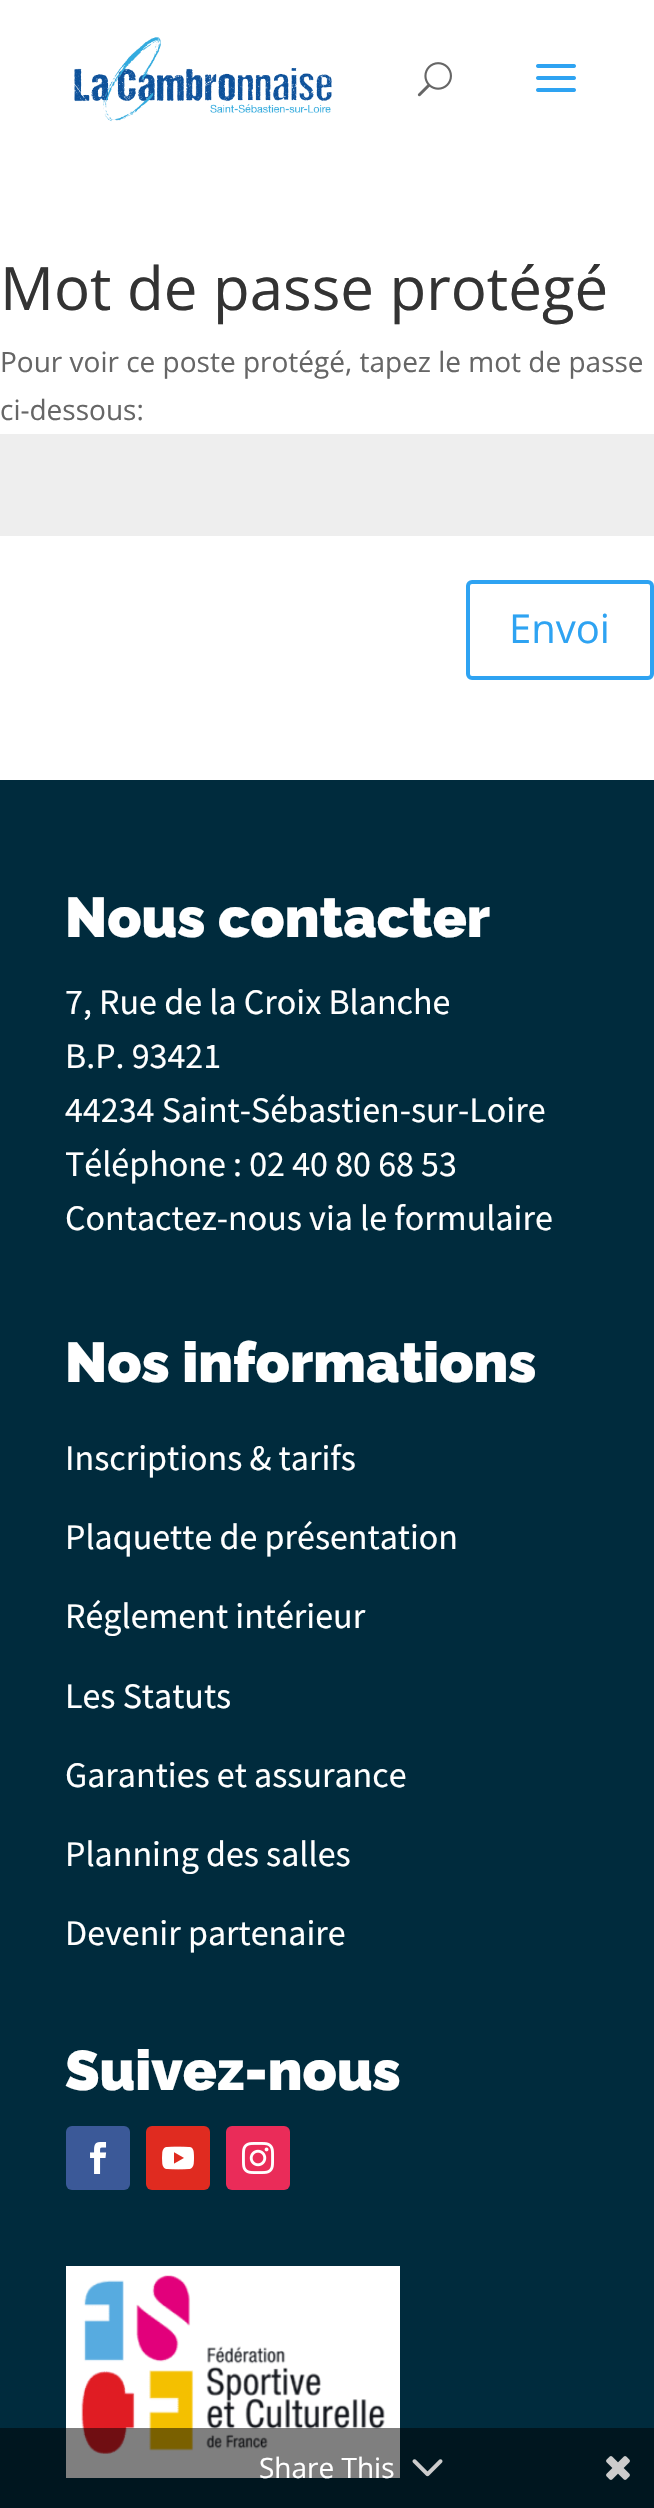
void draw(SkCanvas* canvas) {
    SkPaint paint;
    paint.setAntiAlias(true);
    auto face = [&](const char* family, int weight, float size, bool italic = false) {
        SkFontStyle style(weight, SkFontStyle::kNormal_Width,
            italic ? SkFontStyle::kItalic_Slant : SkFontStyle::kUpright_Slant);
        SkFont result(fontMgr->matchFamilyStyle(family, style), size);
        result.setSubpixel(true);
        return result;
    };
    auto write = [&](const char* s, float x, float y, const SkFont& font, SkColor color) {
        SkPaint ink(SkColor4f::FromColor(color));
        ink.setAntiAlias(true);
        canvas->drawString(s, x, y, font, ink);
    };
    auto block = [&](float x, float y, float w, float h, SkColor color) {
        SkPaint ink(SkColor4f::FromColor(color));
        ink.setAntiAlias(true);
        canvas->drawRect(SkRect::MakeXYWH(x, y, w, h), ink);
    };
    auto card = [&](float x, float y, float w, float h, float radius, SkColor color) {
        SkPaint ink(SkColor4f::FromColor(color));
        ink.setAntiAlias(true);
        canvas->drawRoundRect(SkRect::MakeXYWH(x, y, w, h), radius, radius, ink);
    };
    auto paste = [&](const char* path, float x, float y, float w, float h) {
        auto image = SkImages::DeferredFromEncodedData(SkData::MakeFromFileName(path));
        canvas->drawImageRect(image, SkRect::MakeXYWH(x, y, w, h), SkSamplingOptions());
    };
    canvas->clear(SK_ColorWHITE);
    paste("pic1.png", 74, 37, 258, 85);
    paste("pic2.png", 417, 62, 35, 35);
    paste("pic3.png", 536, 64, 40, 28);
    auto kFont1 = face("Open Sans", 400, 60);
    write("Mot de passe protégé", 0, 310, kFont1, SkColorSetRGB(51, 51, 51));
    auto kFont2 = face("Open Sans", 400, 28);
    write("Pour voir ce poste protégé, tapez le mot de passe", 0, 372, kFont2, SkColorSetRGB(102, 102, 102));
    write("ci-dessous:", 0, 420, kFont2, SkColorSetRGB(102, 102, 102));
    block(0, 434, 654, 102, SkColorSetRGB(238, 238, 238));
    paint.setStyle(SkPaint::kStroke_Style);
    paint.setStrokeWidth(4);
    paint.setColor(SkColorSetRGB(46, 163, 242));
    canvas->drawRoundRect(SkRect::MakeXYWH(468, 582, 184, 96), 4, 4, paint);
    auto kFont3 = face("Open Sans", 400, 40);
    write("Envoi", 509, 643, kFont3, SkColorSetRGB(46, 163, 242));
    block(0, 780, 654, 1728, SkColorSetRGB(0, 43, 61));
    auto kFont4 = face("Raleway", 900, 56);
    write("Nous contacter", 65, 937, kFont4, SK_ColorWHITE);
    auto kFont5 = face("Source Sans Pro", 400, 36);
    write("7, Rue de la Croix Blanche", 65, 1014, kFont5, SK_ColorWHITE);
    write("B.P. 93421", 65, 1068, kFont5, SK_ColorWHITE);
    write("44234 Saint-Sébastien-sur-Loire", 65, 1122, kFont5, SK_ColorWHITE);
    write("Téléphone : 02 40 80 68 53", 65, 1176, kFont5, SK_ColorWHITE);
    write("Contactez-nous via le formulaire", 65, 1230, kFont5, SK_ColorWHITE);
    write("Nos informations", 65, 1382, kFont4, SK_ColorWHITE);
    write("Inscriptions & tarifs", 65, 1470, kFont5, SK_ColorWHITE);
    write("Plaquette de présentation", 65, 1549, kFont5, SK_ColorWHITE);
    write("Réglement intérieur", 65, 1628, kFont5, SK_ColorWHITE);
    write("Les Statuts", 65, 1708, kFont5, SK_ColorWHITE);
    write("Garanties et assurance", 65, 1787, kFont5, SK_ColorWHITE);
    write("Planning des salles", 65, 1866, kFont5, SK_ColorWHITE);
    write("Devenir partenaire", 65, 1945, kFont5, SK_ColorWHITE);
    write("Suivez-nous", 65, 2090, kFont4, SK_ColorWHITE);
    card(66, 2126, 64, 64, 6, SkColorSetRGB(59, 89, 152));
    paste("pic4.png", 90, 2142, 17, 32);
    card(146, 2126, 64, 64, 6, SkColorSetRGB(224, 43, 32));
    paste("pic5.png", 162, 2146, 32, 24);
    card(226, 2126, 64, 64, 6, SkColorSetRGB(234, 44, 89));
    paste("pic6.png", 242, 2142, 32, 32);
    block(66, 2266, 334, 212, SK_ColorWHITE);
    paste("pic7.png", 81, 2275, 304, 179);
    block(0, 2428, 654, 80, SkColorSetARGB(128, 0, 0, 0));
    write("Share This", 259, 2478, kFont2, SK_ColorWHITE);
    paste("pic8.png", 412, 2459, 31, 18);
    paste("pic9.png", 606, 2456, 24, 24);
}
